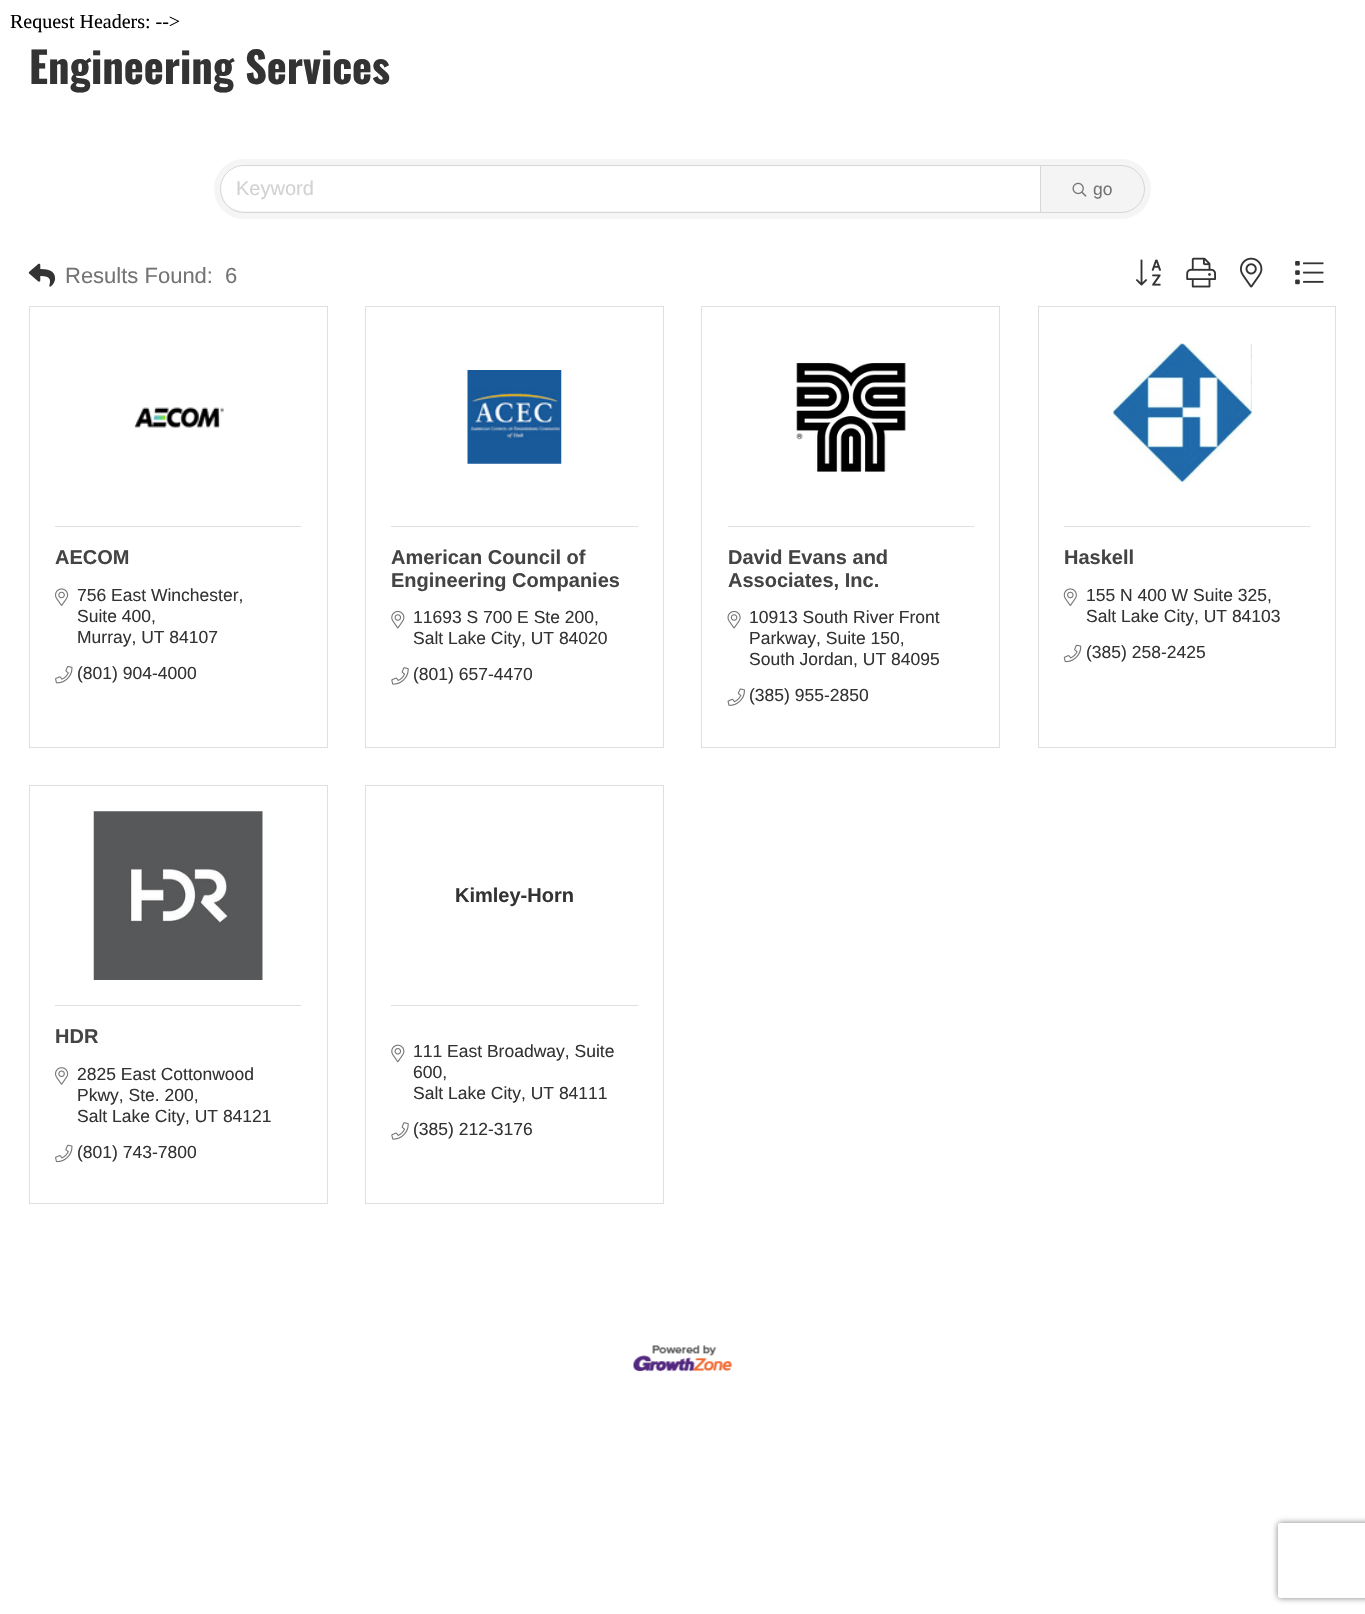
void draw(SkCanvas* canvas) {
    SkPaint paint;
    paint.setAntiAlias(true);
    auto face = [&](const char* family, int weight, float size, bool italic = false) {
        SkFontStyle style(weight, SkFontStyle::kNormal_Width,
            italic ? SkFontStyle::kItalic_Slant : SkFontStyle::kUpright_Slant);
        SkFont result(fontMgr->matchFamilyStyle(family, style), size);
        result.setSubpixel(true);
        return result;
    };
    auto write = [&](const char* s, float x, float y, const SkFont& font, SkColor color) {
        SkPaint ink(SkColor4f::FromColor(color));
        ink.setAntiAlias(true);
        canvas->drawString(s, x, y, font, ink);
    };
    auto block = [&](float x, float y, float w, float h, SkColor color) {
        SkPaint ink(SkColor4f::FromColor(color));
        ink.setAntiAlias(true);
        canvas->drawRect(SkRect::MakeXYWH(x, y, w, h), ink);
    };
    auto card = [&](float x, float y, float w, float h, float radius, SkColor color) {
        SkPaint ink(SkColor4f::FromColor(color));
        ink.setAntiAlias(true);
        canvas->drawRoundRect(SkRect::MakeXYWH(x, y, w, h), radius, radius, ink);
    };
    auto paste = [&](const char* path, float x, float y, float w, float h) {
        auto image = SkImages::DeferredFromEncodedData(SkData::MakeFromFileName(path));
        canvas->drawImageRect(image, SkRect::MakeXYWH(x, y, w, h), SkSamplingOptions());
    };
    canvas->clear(SK_ColorWHITE);
    auto kFont1 = face("Liberation Serif", 400, 20);
    write("Request Headers: -->", 10, 28, kFont1, SK_ColorBLACK);
    auto kFont2 = face("Oswald", 700, 42.5f);
    write("Engineering Services", 29, 84, kFont2, SkColorSetRGB(51, 51, 51));
    card(214, 159, 937, 60, 30, SkColorSetRGB(245, 245, 245));
    paint.setColor(SK_ColorWHITE);
    canvas->drawPath(SkPathBuilder().moveTo(243.5f, 166).lineTo(1040, 166).lineTo(1040, 211).lineTo(243.5f, 211).cubicTo(231, 211, 221, 201, 221, 188.5f).cubicTo(221, 176, 231, 166, 243.5f, 166).close().detach(), paint);
    paint.setStyle(SkPaint::kStroke_Style);
    paint.setStrokeWidth(1);
    paint.setColor(SkColorSetARGB(31, 0, 0, 0));
    canvas->drawPath(SkPathBuilder().moveTo(244, 165.5f).lineTo(1040.5f, 165.5f).lineTo(1040.5f, 212.5f).lineTo(244, 212.5f).cubicTo(231, 212.5f, 220.5f, 202, 220.5f, 189).cubicTo(220.5f, 176, 231, 165.5f, 244, 165.5f).close().detach(), paint);
    auto kFont3 = face("Liberation Sans", 400, 20);
    write("Keyword", 236, 195, kFont3, SkColorSetRGB(210, 210, 210));
    paint.setStyle(SkPaint::kFill_Style);
    paint.setColor(SkColorSetRGB(244, 244, 244));
    canvas->drawPath(SkPathBuilder().moveTo(1040.5f, 165.5f).lineTo(1121, 165.5f).cubicTo(1134, 165.5f, 1144.5f, 176, 1144.5f, 189).cubicTo(1144.5f, 202, 1134, 212.5f, 1121, 212.5f).lineTo(1040.5f, 212.5f).close().detach(), paint);
    paint.setStyle(SkPaint::kStroke_Style);
    paint.setColor(SkColorSetRGB(214, 214, 214));
    canvas->drawPath(SkPathBuilder().moveTo(1040.5f, 165.5f).lineTo(1121, 165.5f).cubicTo(1134, 165.5f, 1144.5f, 176, 1144.5f, 189).cubicTo(1144.5f, 202, 1134, 212.5f, 1121, 212.5f).lineTo(1040.5f, 212.5f).close().detach(), paint);
    paste("pic1.png", 1072, 182, 15, 15);
    auto kFont4 = face("Liberation Sans", 400, 17.5f);
    write("go", 1093, 195, kFont4, SkColorSetRGB(116, 116, 116));
    paste("pic2.png", 28, 263, 28, 24);
    auto kFont5 = face("Liberation Sans", 400, 22);
    write("Results Found:", 65, 283, kFont5, SkColorSetRGB(116, 116, 116));
    write("6", 225, 283, kFont5, SkColorSetRGB(116, 116, 116));
    paste("pic3.png", 1136, 259, 25, 27);
    paste("pic4.png", 1186, 257, 30, 31);
    paste("pic5.png", 1240, 257, 23, 31);
    paste("pic6.png", 1295, 261, 29, 24);
    paint.setColor(SkColorSetRGB(223, 223, 223));
    canvas->drawRect(SkRect::MakeXYWH(29.5f, 306.5f, 298, 441), paint);
    paste("pic7.png", 134, 407, 90, 21);
    block(55, 526, 246, 1, SkColorSetRGB(223, 223, 223));
    auto kFont6 = face("Liberation Sans", 700, 20);
    write("AECOM", 55, 564, kFont6, SkColorSetRGB(68, 68, 68));
    paste("pic8.png", 55, 588, 14, 18);
    write("756 East Winchester,", 77, 601, kFont4, SkColorSetRGB(51, 51, 51));
    write("Suite 400,", 77, 622, kFont4, SkColorSetRGB(51, 51, 51));
    write("Murray, UT 84107", 77, 643, kFont4, SkColorSetRGB(51, 51, 51));
    paste("pic9.png", 55, 666, 18, 18);
    write("(801) 904-4000", 77, 679, kFont4, SkColorSetRGB(51, 51, 51));
    canvas->drawRect(SkRect::MakeXYWH(365.5f, 306.5f, 298, 441), paint);
    paste("pic10.png", 467, 370, 95, 94);
    block(391, 526, 247, 1, SkColorSetRGB(223, 223, 223));
    write("American Council of", 391, 564, kFont6, SkColorSetRGB(68, 68, 68));
    write("Engineering Companies", 391, 587, kFont6, SkColorSetRGB(68, 68, 68));
    paste("pic11.png", 391, 610, 14, 19);
    write("11693 S 700 E Ste 200,", 413, 623, kFont4, SkColorSetRGB(51, 51, 51));
    write("Salt Lake City, UT 84020", 413, 644, kFont4, SkColorSetRGB(51, 51, 51));
    paste("pic12.png", 391, 667, 18, 18);
    write("(801) 657-4470", 413, 680, kFont4, SkColorSetRGB(51, 51, 51));
    canvas->drawRect(SkRect::MakeXYWH(701.5f, 306.5f, 298, 441), paint);
    paste("pic13.png", 796, 362, 110, 110);
    block(728, 526, 246, 1, SkColorSetRGB(223, 223, 223));
    write("David Evans and", 728, 564, kFont6, SkColorSetRGB(68, 68, 68));
    write("Associates, Inc.", 728, 587, kFont6, SkColorSetRGB(68, 68, 68));
    paste("pic14.png", 727, 611, 14, 18);
    write("10913 South River Front", 749, 623, kFont4, SkColorSetRGB(51, 51, 51));
    write("Parkway, Suite 150,", 749, 644, kFont4, SkColorSetRGB(51, 51, 51));
    write("South Jordan, UT 84095", 749, 665, kFont4, SkColorSetRGB(51, 51, 51));
    paste("pic15.png", 727, 688, 18, 18);
    write("(385) 955-2850", 749, 701, kFont4, SkColorSetRGB(51, 51, 51));
    canvas->drawRect(SkRect::MakeXYWH(1038.5f, 306.5f, 297, 441), paint);
    paste("pic16.png", 1113, 343, 139, 140);
    block(1064, 526, 246, 1, SkColorSetRGB(223, 223, 223));
    write("Haskell", 1064, 564, kFont6, SkColorSetRGB(68, 68, 68));
    paste("pic17.png", 1063, 588, 14, 18);
    write("155 N 400 W Suite 325,", 1086, 601, kFont4, SkColorSetRGB(51, 51, 51));
    write("Salt Lake City, UT 84103", 1086, 622, kFont4, SkColorSetRGB(51, 51, 51));
    paste("pic18.png", 1063, 644, 19, 19);
    write("(385) 258-2425", 1086, 658, kFont4, SkColorSetRGB(51, 51, 51));
    canvas->drawRect(SkRect::MakeXYWH(29.5f, 785.5f, 298, 418), paint);
    paste("pic19.png", 93, 811, 170, 169);
    block(55, 1005, 246, 1, SkColorSetRGB(223, 223, 223));
    write("HDR", 55, 1043, kFont6, SkColorSetRGB(68, 68, 68));
    paste("pic20.png", 55, 1067, 14, 18);
    write("2825 East Cottonwood", 77, 1080, kFont4, SkColorSetRGB(51, 51, 51));
    write("Pkwy, Ste. 200,", 77, 1101, kFont4, SkColorSetRGB(51, 51, 51));
    write("Salt Lake City, UT 84121", 77, 1122, kFont4, SkColorSetRGB(51, 51, 51));
    paste("pic21.png", 55, 1144, 18, 19);
    write("(801) 743-7800", 77, 1158, kFont4, SkColorSetRGB(51, 51, 51));
    canvas->drawRect(SkRect::MakeXYWH(365.5f, 785.5f, 298, 418), paint);
    write("Kimley-Horn", 455, 902, kFont6, SkColorSetRGB(51, 51, 51));
    block(391, 1005, 247, 1, SkColorSetRGB(223, 223, 223));
    paste("pic22.png", 391, 1044, 14, 19);
    write("111 East Broadway, Suite", 413, 1057, kFont4, SkColorSetRGB(51, 51, 51));
    write("600,", 413, 1078, kFont4, SkColorSetRGB(51, 51, 51));
    write("Salt Lake City, UT 84111", 413, 1099, kFont4, SkColorSetRGB(51, 51, 51));
    paste("pic12.png", 391, 1122, 18, 18);
    write("(385) 212-3176", 413, 1135, kFont4, SkColorSetRGB(51, 51, 51));
    paste("pic23.png", 633, 1345, 99, 27);
    canvas->save();
    canvas->clipPath(SkPathBuilder(SkPathFillType::kEvenOdd).moveTo(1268, 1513).lineTo(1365, 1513).lineTo(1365, 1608).lineTo(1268, 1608).close().moveTo(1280.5f, 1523).lineTo(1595.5f, 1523).cubicTo(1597, 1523, 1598, 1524, 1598, 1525.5f).lineTo(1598, 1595.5f).cubicTo(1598, 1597, 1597, 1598, 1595.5f, 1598).lineTo(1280.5f, 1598).cubicTo(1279, 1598, 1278, 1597, 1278, 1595.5f).lineTo(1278, 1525.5f).cubicTo(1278, 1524, 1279, 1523, 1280.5f, 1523).close().detach(), true);
    paint.setStyle(SkPaint::kFill_Style);
    paint.setColor(SkColorSetRGB(128, 128, 128));
    paint.setMaskFilter(SkMaskFilter::MakeBlur(kNormal_SkBlurStyle, 3));
    canvas->drawRoundRect(SkRect::MakeXYWH(1278, 1523, 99, 75), 2.5f, 2.5f, paint);
    paint.setMaskFilter(nullptr);
    canvas->restore();
}
